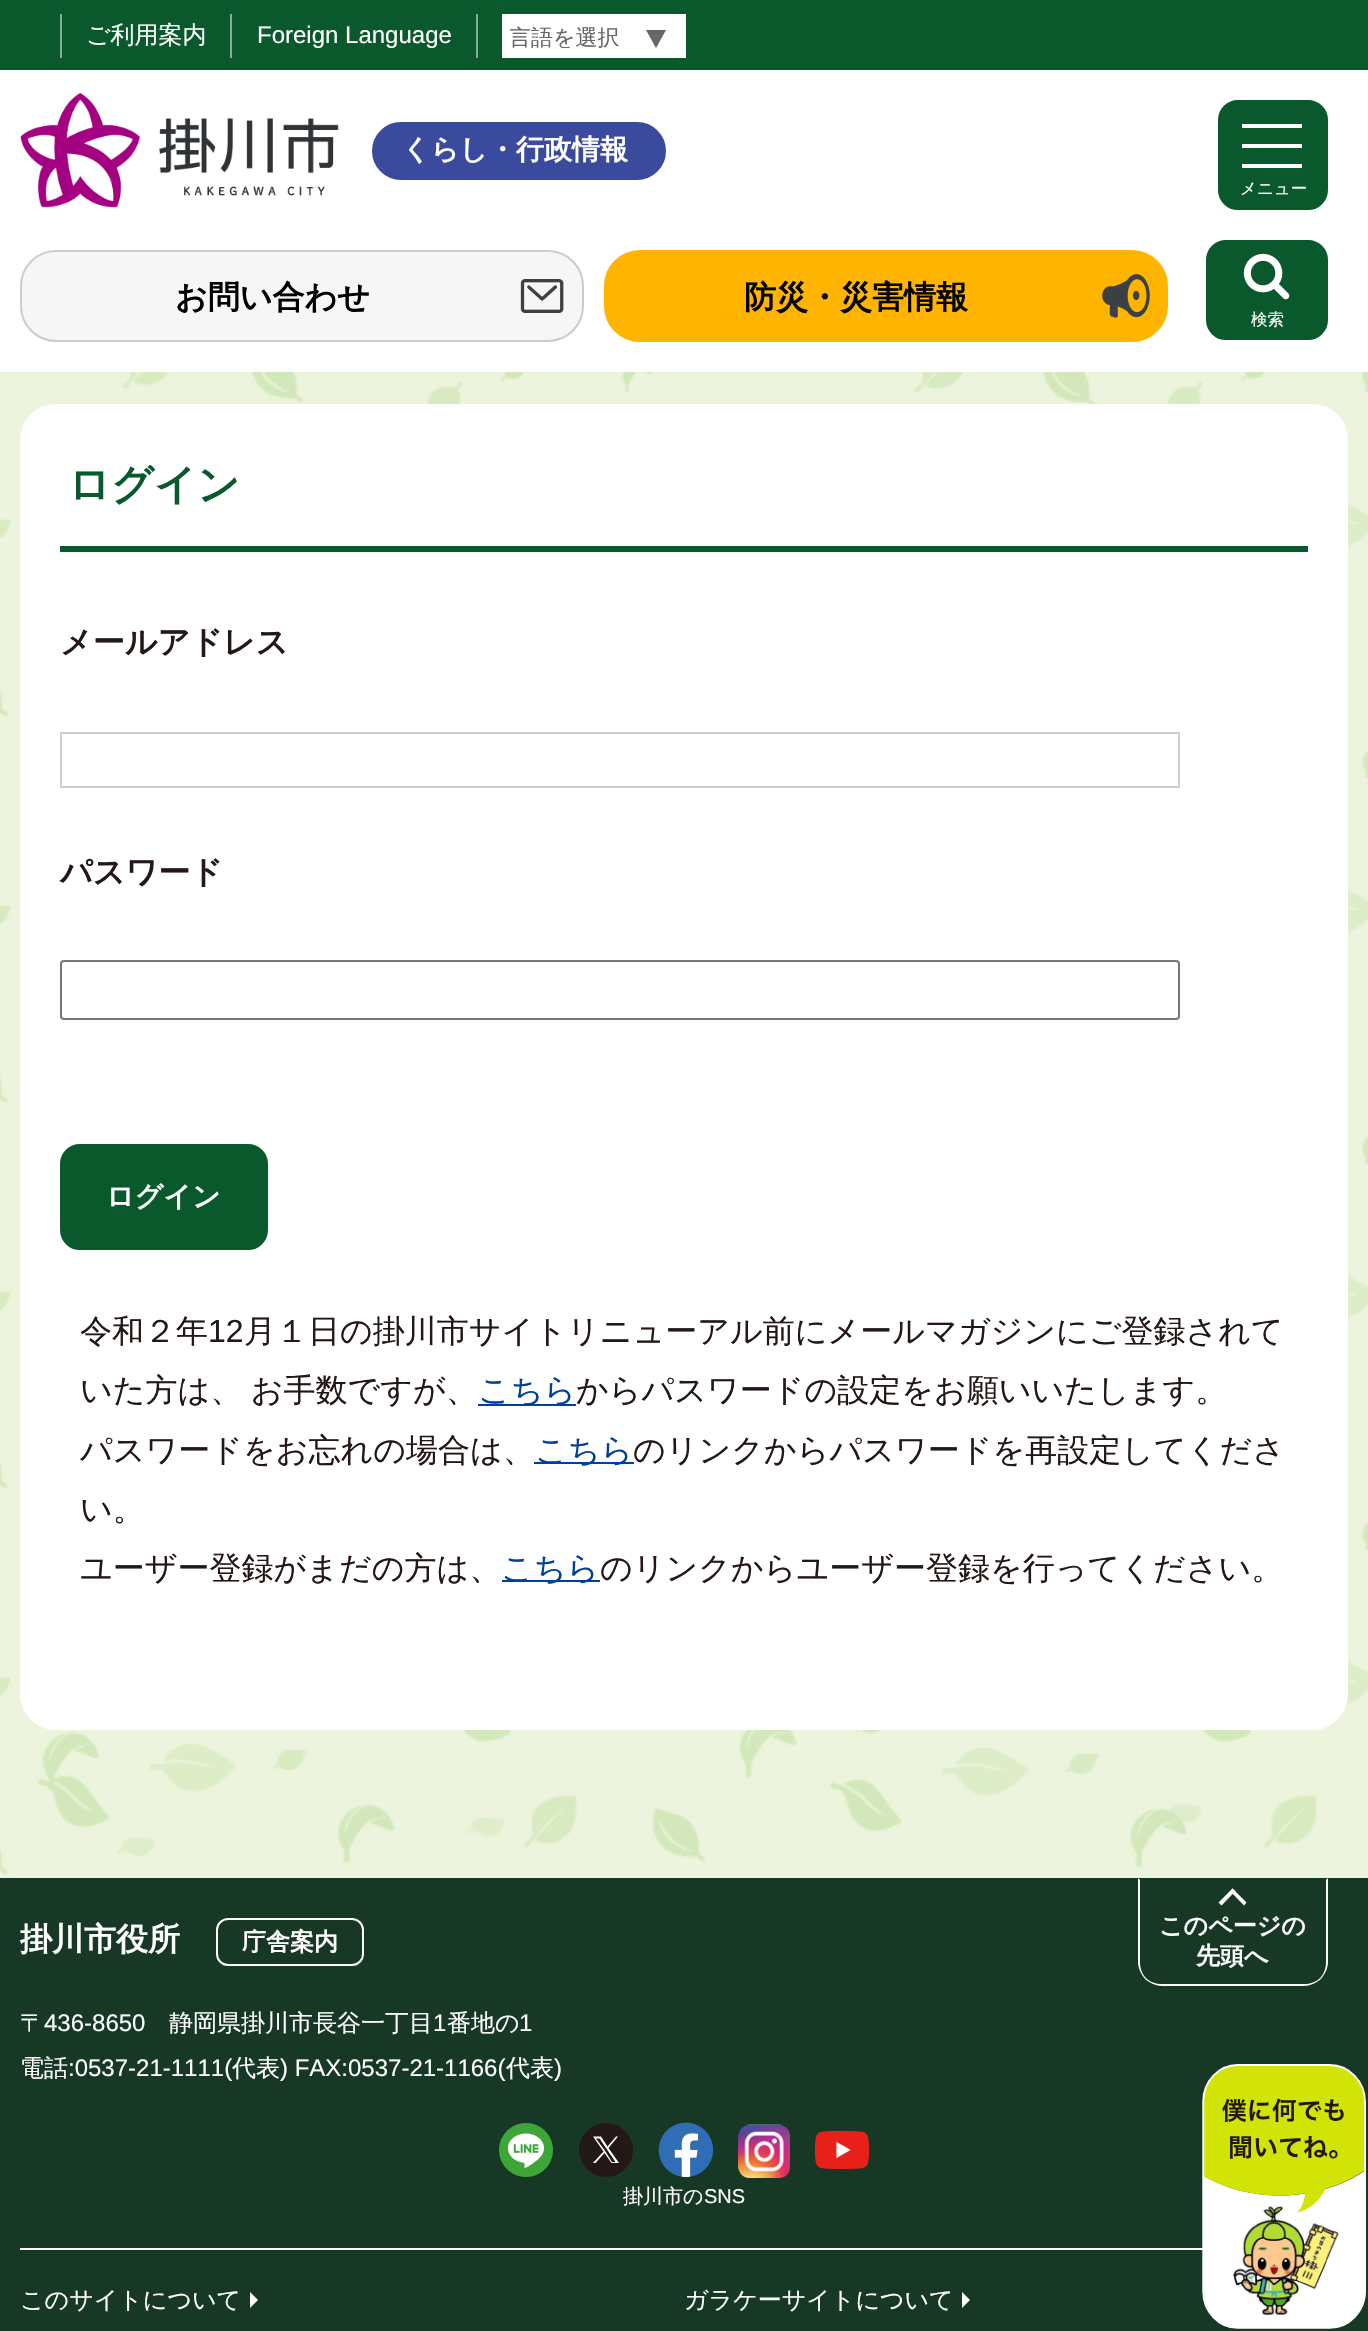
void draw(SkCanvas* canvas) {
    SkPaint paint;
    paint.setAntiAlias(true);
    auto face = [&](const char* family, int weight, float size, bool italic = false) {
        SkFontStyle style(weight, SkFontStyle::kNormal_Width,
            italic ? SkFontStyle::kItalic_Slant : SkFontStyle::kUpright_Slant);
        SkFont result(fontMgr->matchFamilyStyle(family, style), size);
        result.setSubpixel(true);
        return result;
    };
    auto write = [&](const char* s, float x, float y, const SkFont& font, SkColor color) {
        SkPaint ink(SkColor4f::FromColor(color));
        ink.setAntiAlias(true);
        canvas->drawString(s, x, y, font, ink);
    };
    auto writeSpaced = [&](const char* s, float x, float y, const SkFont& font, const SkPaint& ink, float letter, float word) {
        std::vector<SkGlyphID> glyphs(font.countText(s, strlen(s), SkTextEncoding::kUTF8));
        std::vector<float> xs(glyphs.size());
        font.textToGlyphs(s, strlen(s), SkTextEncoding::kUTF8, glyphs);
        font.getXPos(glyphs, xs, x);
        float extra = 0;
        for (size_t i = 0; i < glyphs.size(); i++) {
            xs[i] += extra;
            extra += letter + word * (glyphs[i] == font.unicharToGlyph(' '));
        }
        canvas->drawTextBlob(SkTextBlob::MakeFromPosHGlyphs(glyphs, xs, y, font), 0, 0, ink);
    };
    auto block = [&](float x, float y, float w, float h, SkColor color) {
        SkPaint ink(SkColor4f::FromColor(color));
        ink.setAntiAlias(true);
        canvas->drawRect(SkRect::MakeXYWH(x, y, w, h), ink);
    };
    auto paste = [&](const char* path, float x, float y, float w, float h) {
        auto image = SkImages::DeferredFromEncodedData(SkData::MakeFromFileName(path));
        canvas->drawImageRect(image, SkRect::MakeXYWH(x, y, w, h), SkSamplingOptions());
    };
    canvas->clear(SK_ColorWHITE);
    block(0, 0, 1368, 70, SkColorSetRGB(10, 89, 45));
    block(60, 14, 2, 44, SkColorSetRGB(133, 172, 150));
    auto kFont1 = face("WenQuanYi Zen Hei", 500, 24);
    write("ご利用案内", 86, 43, kFont1, SK_ColorWHITE);
    block(230, 14, 2, 44, SkColorSetRGB(133, 172, 150));
    auto kFont2 = face("Liberation Sans", 400, 24);
    write("Foreign Language", 257, 43, kFont2, SK_ColorWHITE);
    block(476, 14, 2, 44, SkColorSetRGB(133, 172, 150));
    block(502, 14, 184, 44, SK_ColorWHITE);
    canvas->save();
    canvas->clipRect(SkRect::MakeXYWH(510, 24, 154, 24));
    auto kFont3 = face("WenQuanYi Zen Hei", 500, 22);
    write("言語を選択", 509, 45, kFont3, SkColorSetRGB(102, 102, 102));
    canvas->restore();
    paint.setColor(SkColorSetRGB(102, 102, 102));
    canvas->drawPath(SkPathBuilder().moveTo(646, 30).lineTo(666, 30).lineTo(656, 48).close().detach(), paint);
    paste("pic1.png", 20, 92, 319, 116);
    paint.setColor(SkColorSetRGB(58, 74, 157));
    canvas->drawRoundRect(SkRect::MakeXYWH(373, 123, 292, 56), 28, 28, paint);
    paint.setStyle(SkPaint::kStroke_Style);
    paint.setStrokeWidth(2);
    canvas->drawRoundRect(SkRect::MakeXYWH(373, 123, 292, 56), 28, 28, paint);
    auto kFont4 = face("WenQuanYi Zen Hei", 700, 28);
    write("くらし・行政情報", 402, 159, kFont4, SK_ColorWHITE);
    paint.setStyle(SkPaint::kFill_Style);
    paint.setColor(SkColorSetRGB(246, 246, 246));
    canvas->drawRoundRect(SkRect::MakeXYWH(21, 251, 562, 90), 35, 35, paint);
    paint.setStyle(SkPaint::kStroke_Style);
    paint.setColor(SkColorSetRGB(204, 204, 204));
    canvas->drawRoundRect(SkRect::MakeXYWH(21, 251, 562, 90), 35, 35, paint);
    auto kFont5 = face("WenQuanYi Zen Hei", 700, 32);
    write("お問い合わせ", 175, 308, kFont5, SK_ColorBLACK);
    paste("pic2.png", 520, 279, 44, 34);
    paint.setStyle(SkPaint::kFill_Style);
    paint.setColor(SkColorSetRGB(255, 180, 0));
    canvas->drawRoundRect(SkRect::MakeXYWH(605, 251, 562, 90), 35, 35, paint);
    paint.setStyle(SkPaint::kStroke_Style);
    canvas->drawRoundRect(SkRect::MakeXYWH(605, 251, 562, 90), 35, 35, paint);
    write("防災・災害情報", 744, 308, kFont5, SK_ColorBLACK);
    paste("pic3.png", 1102, 274, 48, 44);
    paint.setStyle(SkPaint::kFill_Style);
    paint.setColor(SkColorSetRGB(10, 89, 45));
    canvas->drawRoundRect(SkRect::MakeXYWH(1219, 101, 108, 108), 19, 19, paint);
    paint.setStyle(SkPaint::kStroke_Style);
    canvas->drawRoundRect(SkRect::MakeXYWH(1219, 101, 108, 108), 19, 19, paint);
    block(1242, 124, 60, 4, SK_ColorWHITE);
    block(1242, 144, 60, 4, SK_ColorWHITE);
    block(1242, 164, 60, 4, SK_ColorWHITE);
    auto kFont6 = face("WenQuanYi Zen Hei", 500, 16.5f);
    write("メニュー", 1240, 194, kFont6, SK_ColorWHITE);
    paint.setStyle(SkPaint::kFill_Style);
    canvas->drawRoundRect(SkRect::MakeXYWH(1207, 241, 120, 98), 19, 19, paint);
    paint.setStyle(SkPaint::kStroke_Style);
    canvas->drawRoundRect(SkRect::MakeXYWH(1207, 241, 120, 98), 19, 19, paint);
    paste("pic4.png", 1243, 253, 47, 47);
    write("検索", 1251, 325, kFont6, SK_ColorWHITE);
    block(0, 372, 1368, 1506, SkColorSetRGB(236, 244, 221));
    paste("pic5.png", 0, 372, 1368, 1503);
    paint.setStyle(SkPaint::kFill_Style);
    paint.setColor(SK_ColorWHITE);
    canvas->drawPath(SkPathBuilder().moveTo(56, 404).lineTo(1312, 404).cubicTo(1332, 404, 1348, 420, 1348, 440).lineTo(1348, 552).lineTo(20, 552).lineTo(20, 440).cubicTo(20, 420, 36, 404, 56, 404).close().detach(), paint);
    block(60, 546, 1248, 6, SkColorSetRGB(10, 89, 45));
    auto kFont7 = face("WenQuanYi Zen Hei", 700, 42);
    write("ログイン", 68, 499, kFont7, SkColorSetRGB(10, 89, 45));
    canvas->drawPath(SkPathBuilder().moveTo(20, 552).lineTo(1348, 552).lineTo(1348, 1694).cubicTo(1348, 1714, 1332, 1730, 1312, 1730).lineTo(56, 1730).cubicTo(36, 1730, 20, 1714, 20, 1694).close().detach(), paint);
    write("メールアドレス", 60, 653, kFont5, SkColorSetRGB(35, 24, 21));
    paint.setStyle(SkPaint::kStroke_Style);
    paint.setColor(SkColorSetRGB(204, 204, 204));
    canvas->drawRect(SkRect::MakeXYWH(61, 733, 1118, 54), paint);
    write("パスワード", 60, 883, kFont5, SkColorSetRGB(35, 24, 21));
    paint.setColor(SkColorSetRGB(118, 118, 118));
    canvas->drawRoundRect(SkRect::MakeXYWH(61, 961, 1118, 58), 3, 3, paint);
    paint.setStyle(SkPaint::kFill_Style);
    paint.setColor(SkColorSetRGB(10, 89, 45));
    canvas->drawRoundRect(SkRect::MakeXYWH(61, 1145, 206, 104), 19, 19, paint);
    paint.setStyle(SkPaint::kStroke_Style);
    canvas->drawRoundRect(SkRect::MakeXYWH(61, 1145, 206, 104), 19, 19, paint);
    write("ログイン", 106, 1206, kFont4, SK_ColorWHITE);
    auto kFont8 = face("WenQuanYi Zen Hei", 500, 32);
    write("令和２年", 80, 1342, kFont8, SkColorSetRGB(35, 24, 21));
    auto kFont9 = face("Liberation Sans", 400, 32);
    write("12", 208, 1342, kFont9, SkColorSetRGB(35, 24, 21));
    write("月１日の掛川市サイトリニューアル前にメールマガジンにご登録されて", 244, 1342, kFont8, SkColorSetRGB(35, 24, 21));
    paint.setStyle(SkPaint::kFill_Style);
    paint.setColor(SkColorSetRGB(35, 24, 21));
    writeSpaced("いた方は、 お手数ですが、", 80, 1401, kFont8, paint, 0, -1);
    block(478, 1404, 98, 2, SkColorSetRGB(0, 64, 152));
    write("こちら", 478, 1401, kFont8, SkColorSetRGB(0, 64, 152));
    write("からパスワードの設定をお願いいたします。", 576, 1401, kFont8, SkColorSetRGB(35, 24, 21));
    write("パスワードをお忘れの場合は、", 80, 1461, kFont8, SkColorSetRGB(35, 24, 21));
    block(534, 1462, 100, 2, SkColorSetRGB(0, 64, 152));
    write("こちら", 535, 1461, kFont8, SkColorSetRGB(0, 64, 152));
    write("のリンクからパスワードを再設定してくださ", 633, 1461, kFont8, SkColorSetRGB(35, 24, 21));
    write("い。", 80, 1520, kFont8, SkColorSetRGB(35, 24, 21));
    write("ユーザー登録がまだの方は、", 80, 1579, kFont8, SkColorSetRGB(35, 24, 21));
    block(502, 1580, 98, 2, SkColorSetRGB(0, 64, 152));
    write("こちら", 501, 1579, kFont8, SkColorSetRGB(0, 64, 152));
    write("のリンクからユーザー登録を行ってください。", 600, 1579, kFont8, SkColorSetRGB(35, 24, 21));
    block(0, 1878, 1368, 453, SkColorSetRGB(22, 56, 36));
    write("掛川市役所", 20, 1950, kFont5, SK_ColorWHITE);
    paint.setStyle(SkPaint::kStroke_Style);
    paint.setColor(SK_ColorWHITE);
    canvas->drawRoundRect(SkRect::MakeXYWH(217, 1919, 146, 46), 11, 11, paint);
    auto kFont10 = face("WenQuanYi Zen Hei", 700, 24);
    write("庁舎案内", 242, 1950, kFont10, SK_ColorWHITE);
    write("〒", 20, 2031, kFont1, SK_ColorWHITE);
    write("436-8650", 44, 2031, kFont2, SK_ColorWHITE);
    write("静岡県掛川市長谷一丁目", 169, 2031, kFont1, SK_ColorWHITE);
    write("1", 433, 2031, kFont2, SK_ColorWHITE);
    write("番地の", 447, 2031, kFont1, SK_ColorWHITE);
    write("1", 519, 2031, kFont2, SK_ColorWHITE);
    write("電話", 20, 2076, kFont1, SK_ColorWHITE);
    write(":0537-21-1111(", 68, 2076, kFont2, SK_ColorWHITE);
    write("代表", 232, 2076, kFont1, SK_ColorWHITE);
    write(") FAX:0537-21-1166(", 280, 2076, kFont2, SK_ColorWHITE);
    write("代表", 506, 2076, kFont1, SK_ColorWHITE);
    write(")", 554, 2076, kFont2, SK_ColorWHITE);
    paste("pic6.png", 499, 2123, 54, 54);
    paint.setStyle(SkPaint::kFill_Style);
    paint.setColor(SkColorSetRGB(35, 24, 21));
    canvas->drawCircle(606, 2150, 27, paint);
    paint.setColor(SK_ColorWHITE);
    canvas->drawPath(SkPathBuilder().moveTo(608.5f, 2148).lineTo(618, 2136.5f).lineTo(616, 2136.5f).lineTo(607.5f, 2146.5f).lineTo(601, 2136.5f).lineTo(593, 2136.5f).lineTo(603.5f, 2151.5f).lineTo(593, 2163).lineTo(595.5f, 2163).lineTo(604.5f, 2153).lineTo(611.5f, 2163).lineTo(619, 2163).close().moveTo(605.5f, 2151.5f).lineTo(596, 2138.5f).lineTo(599.5f, 2138.5f).lineTo(615.5f, 2162).lineTo(612, 2162).close().detach(), paint);
    paste("pic7.png", 658, 2122, 56, 55);
    paste("pic8.png", 738, 2124, 52, 54);
    paste("pic9.png", 814, 2130, 56, 40);
    auto kFont11 = face("WenQuanYi Zen Hei", 500, 20);
    write("掛川市の", 623, 2203, kFont11, SK_ColorWHITE);
    auto kFont12 = face("Liberation Sans", 400, 20);
    write("SNS", 704, 2203, kFont12, SK_ColorWHITE);
    canvas->drawPath(SkPathBuilder().moveTo(1328, 1878).lineTo(1326, 1880).lineTo(1326, 1962).cubicTo(1326, 1968, 1324, 1974, 1320, 1978).lineTo(1321, 1979).cubicTo(1325, 1974, 1328, 1968, 1328, 1962).close().detach(), paint);
    canvas->drawPath(SkPathBuilder().moveTo(1162, 1986).lineTo(1304, 1986).cubicTo(1310, 1986, 1316, 1983, 1321, 1979).lineTo(1320, 1978).cubicTo(1316, 1982, 1310, 1984, 1304, 1984).lineTo(1162, 1984).cubicTo(1156, 1984, 1150, 1982, 1146, 1978).lineTo(1145, 1979).cubicTo(1150, 1983, 1156, 1986, 1162, 1986).close().detach(), paint);
    canvas->drawPath(SkPathBuilder().moveTo(1140, 1880).lineTo(1138, 1878).lineTo(1138, 1962).cubicTo(1138, 1968, 1141, 1974, 1145, 1979).lineTo(1146, 1978).cubicTo(1142, 1974, 1140, 1968, 1140, 1962).close().detach(), paint);
    canvas->drawPath(SkPathBuilder().moveTo(1218.5f, 1902.5f).lineTo(1232.5f, 1888.5f).lineTo(1235.5f, 1891).lineTo(1221.5f, 1905.5f).close().detach(), paint);
    canvas->drawPath(SkPathBuilder().moveTo(1230, 1891).lineTo(1232.5f, 1888.5f).lineTo(1246.5f, 1902.5f).lineTo(1244, 1905.5f).close().detach(), paint);
    write("このページの", 1159, 1934, kFont10, SK_ColorWHITE);
    write("先頭へ", 1196, 1964, kFont10, SK_ColorWHITE);
    block(20, 2248, 1183, 2, SK_ColorWHITE);
    write("このサイトについて", 20, 2308, kFont1, SK_ColorWHITE);
    canvas->drawPath(SkPathBuilder().moveTo(250, 2308).lineTo(250, 2292).lineTo(258, 2300).close().detach(), paint);
    write("ガラケーサイトについて", 684, 2308, kFont1, SK_ColorWHITE);
    canvas->drawPath(SkPathBuilder().moveTo(962, 2308).lineTo(962, 2292).lineTo(970, 2300).close().detach(), paint);
    paste("pic10.png", 1202, 2064, 164, 265);
}
